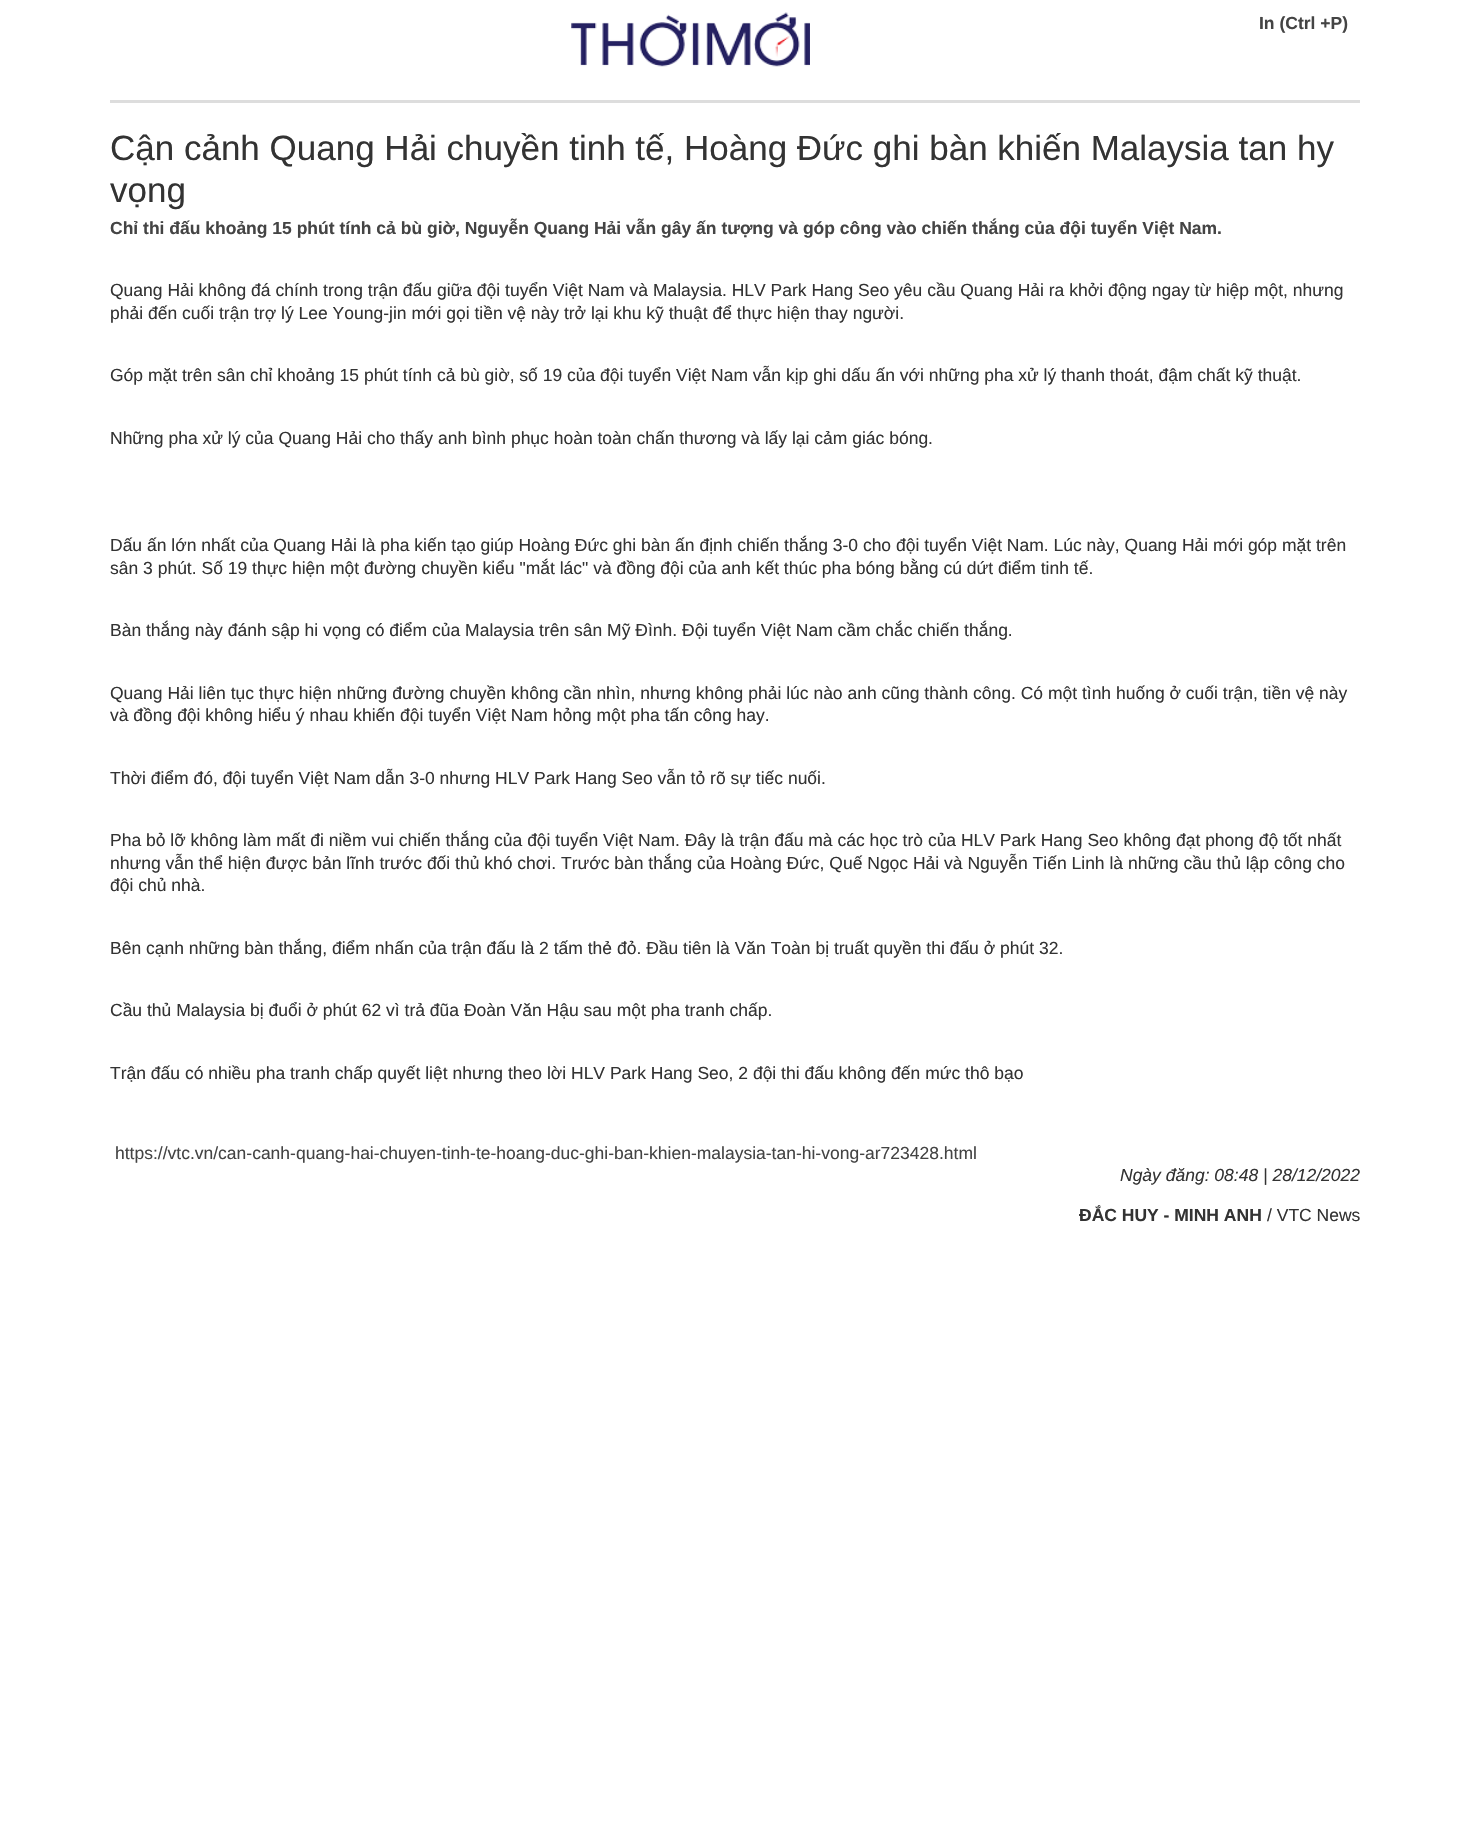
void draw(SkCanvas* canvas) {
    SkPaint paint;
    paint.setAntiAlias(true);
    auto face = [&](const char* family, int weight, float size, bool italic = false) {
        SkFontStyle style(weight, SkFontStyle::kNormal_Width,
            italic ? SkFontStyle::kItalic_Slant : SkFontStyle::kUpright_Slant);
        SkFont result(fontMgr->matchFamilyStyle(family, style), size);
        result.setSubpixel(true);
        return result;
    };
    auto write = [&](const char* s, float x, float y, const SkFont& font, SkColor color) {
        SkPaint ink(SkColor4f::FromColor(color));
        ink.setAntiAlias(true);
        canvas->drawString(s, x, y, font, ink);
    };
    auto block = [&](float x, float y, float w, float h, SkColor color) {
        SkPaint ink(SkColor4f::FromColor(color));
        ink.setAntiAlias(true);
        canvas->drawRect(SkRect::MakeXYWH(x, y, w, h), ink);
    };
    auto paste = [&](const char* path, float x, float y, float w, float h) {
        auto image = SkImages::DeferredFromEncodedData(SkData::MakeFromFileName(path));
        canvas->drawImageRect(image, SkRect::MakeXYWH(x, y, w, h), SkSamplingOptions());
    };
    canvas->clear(SK_ColorWHITE);
    block(110, 100, 1250, 3, SkColorSetRGB(221, 221, 221));
    paste("pic1.png", 571, 12, 239, 55);
    auto kFont1 = face("Liberation Sans", 700, 17.5f);
    write("In (Ctrl +P)", 1259, 29, kFont1, SkColorSetRGB(68, 68, 68));
    auto kFont2 = face("Liberation Sans", 400, 35);
    write("Cận cảnh Quang Hải chuyền tinh tế, Hoàng Đức ghi bàn khiến Malaysia tan hy", 110, 160, kFont2, SkColorSetRGB(51, 51, 51));
    write("vọng", 110, 202, kFont2, SkColorSetRGB(51, 51, 51));
    write("Chỉ thi đấu khoảng 15 phút tính cả bù giờ, Nguyễn Quang Hải vẫn gây ấn tượng và góp công vào chiến thắng của đội tuyển Việt Nam.", 110, 234, kFont1, SkColorSetRGB(68, 68, 68));
    auto kFont3 = face("Liberation Sans", 400, 17.5f);
    write("Quang Hải không đá chính trong trận đấu giữa đội tuyển Việt Nam và Malaysia. HLV Park Hang Seo yêu cầu Quang Hải ra khởi động ngay từ hiệp một, nhưng", 110, 296, kFont3, SkColorSetRGB(51, 51, 51));
    write("phải đến cuối trận trợ lý Lee Young-jin mới gọi tiền vệ này trở lại khu kỹ thuật để thực hiện thay người.", 110, 319, kFont3, SkColorSetRGB(51, 51, 51));
    write("Góp mặt trên sân chỉ khoảng 15 phút tính cả bù giờ, số 19 của đội tuyển Việt Nam vẫn kịp ghi dấu ấn với những pha xử lý thanh thoát, đậm chất kỹ thuật.", 110, 381, kFont3, SkColorSetRGB(51, 51, 51));
    write("Những pha xử lý của Quang Hải cho thấy anh bình phục hoàn toàn chấn thương và lấy lại cảm giác bóng.", 110, 444, kFont3, SkColorSetRGB(51, 51, 51));
    write("Dấu ấn lớn nhất của Quang Hải là pha kiến tạo giúp Hoàng Đức ghi bàn ấn định chiến thắng 3-0 cho đội tuyển Việt Nam. Lúc này, Quang Hải mới góp mặt trên", 110, 551, kFont3, SkColorSetRGB(51, 51, 51));
    write("sân 3 phút. Số 19 thực hiện một đường chuyền kiểu \"mắt lác\" và đồng đội của anh kết thúc pha bóng bằng cú dứt điểm tinh tế.", 110, 574, kFont3, SkColorSetRGB(51, 51, 51));
    write("Bàn thắng này đánh sập hi vọng có điểm của Malaysia trên sân Mỹ Đình. Đội tuyển Việt Nam cầm chắc chiến thắng.", 110, 636, kFont3, SkColorSetRGB(51, 51, 51));
    write("Quang Hải liên tục thực hiện những đường chuyền không cần nhìn, nhưng không phải lúc nào anh cũng thành công. Có một tình huống ở cuối trận, tiền vệ này", 110, 699, kFont3, SkColorSetRGB(51, 51, 51));
    write("và đồng đội không hiểu ý nhau khiến đội tuyển Việt Nam hỏng một pha tấn công hay.", 110, 721, kFont3, SkColorSetRGB(51, 51, 51));
    write("Thời điểm đó, đội tuyển Việt Nam dẫn 3-0 nhưng HLV Park Hang Seo vẫn tỏ rõ sự tiếc nuối.", 110, 784, kFont3, SkColorSetRGB(51, 51, 51));
    write("Pha bỏ lỡ không làm mất đi niềm vui chiến thắng của đội tuyển Việt Nam. Đây là trận đấu mà các học trò của HLV Park Hang Seo không đạt phong độ tốt nhất", 110, 846, kFont3, SkColorSetRGB(51, 51, 51));
    write("nhưng vẫn thể hiện được bản lĩnh trước đối thủ khó chơi. Trước bàn thắng của Hoàng Đức, Quế Ngọc Hải và Nguyễn Tiến Linh là những cầu thủ lập công cho", 110, 869, kFont3, SkColorSetRGB(51, 51, 51));
    write("đội chủ nhà.", 110, 891, kFont3, SkColorSetRGB(51, 51, 51));
    write("Bên cạnh những bàn thắng, điểm nhấn của trận đấu là 2 tấm thẻ đỏ. Đầu tiên là Văn Toàn bị truất quyền thi đấu ở phút 32.", 110, 954, kFont3, SkColorSetRGB(51, 51, 51));
    write("Cầu thủ Malaysia bị đuổi ở phút 62 vì trả đũa Đoàn Văn Hậu sau một pha tranh chấp.", 110, 1016, kFont3, SkColorSetRGB(51, 51, 51));
    write("Trận đấu có nhiều pha tranh chấp quyết liệt nhưng theo lời HLV Park Hang Seo, 2 đội thi đấu không đến mức thô bạo", 110, 1079, kFont3, SkColorSetRGB(51, 51, 51));
    write("https://vtc.vn/can-canh-quang-hai-chuyen-tinh-te-hoang-duc-ghi-ban-khien-malaysia-tan-hi-vong-ar723428.html", 115, 1159, kFont3, SkColorSetRGB(68, 68, 68));
    auto kFont4 = face("Liberation Sans", 400, 17.5f, true);
    write("Ngày đăng: 08:48 | 28/12/2022", 1120, 1181, kFont4, SkColorSetRGB(51, 51, 51));
    write("ĐẮC HUY - MINH ANH", 1079, 1221, kFont1, SkColorSetRGB(51, 51, 51));
    write("/ VTC News", 1267, 1221, kFont3, SkColorSetRGB(51, 51, 51));
}
